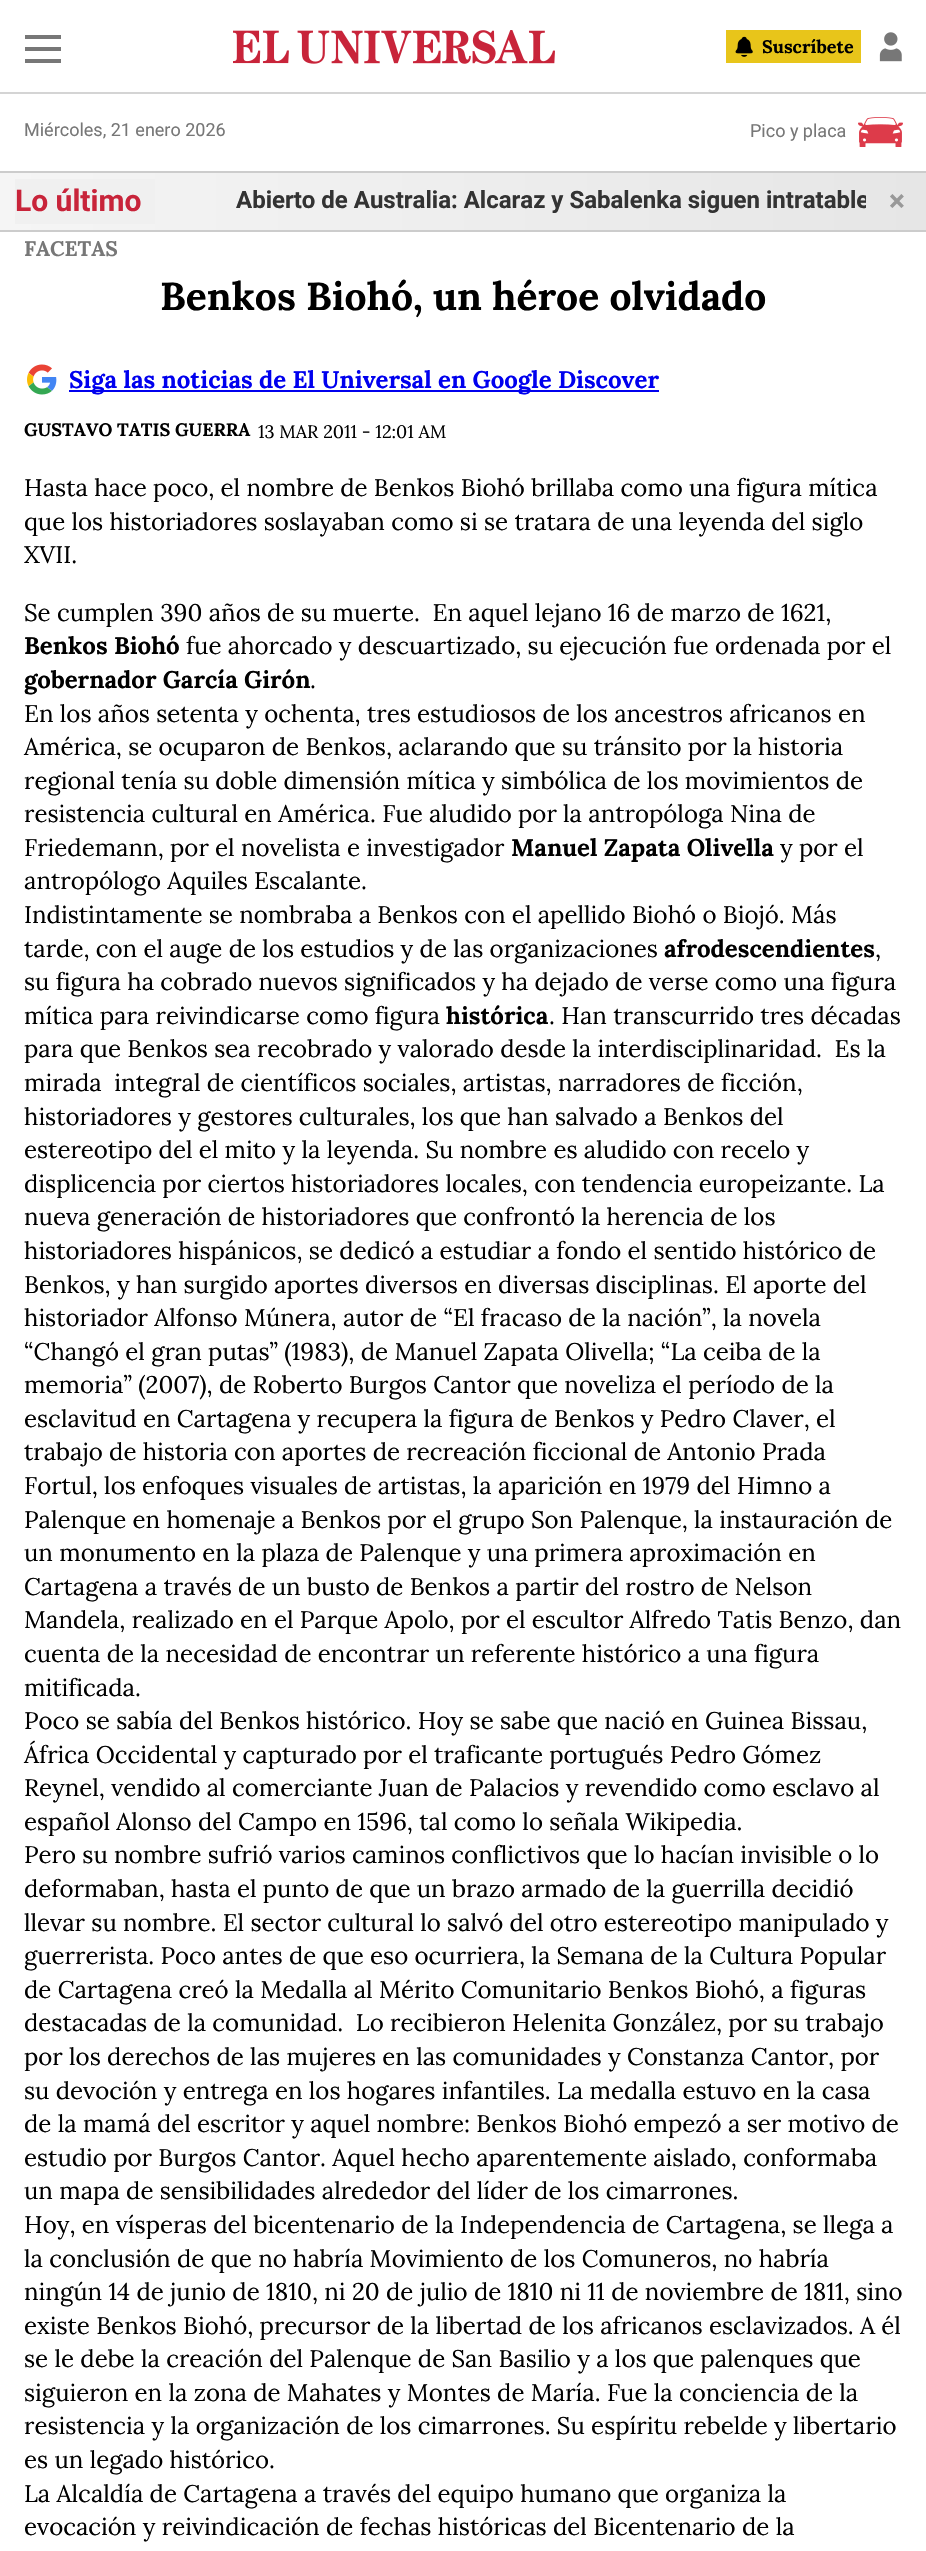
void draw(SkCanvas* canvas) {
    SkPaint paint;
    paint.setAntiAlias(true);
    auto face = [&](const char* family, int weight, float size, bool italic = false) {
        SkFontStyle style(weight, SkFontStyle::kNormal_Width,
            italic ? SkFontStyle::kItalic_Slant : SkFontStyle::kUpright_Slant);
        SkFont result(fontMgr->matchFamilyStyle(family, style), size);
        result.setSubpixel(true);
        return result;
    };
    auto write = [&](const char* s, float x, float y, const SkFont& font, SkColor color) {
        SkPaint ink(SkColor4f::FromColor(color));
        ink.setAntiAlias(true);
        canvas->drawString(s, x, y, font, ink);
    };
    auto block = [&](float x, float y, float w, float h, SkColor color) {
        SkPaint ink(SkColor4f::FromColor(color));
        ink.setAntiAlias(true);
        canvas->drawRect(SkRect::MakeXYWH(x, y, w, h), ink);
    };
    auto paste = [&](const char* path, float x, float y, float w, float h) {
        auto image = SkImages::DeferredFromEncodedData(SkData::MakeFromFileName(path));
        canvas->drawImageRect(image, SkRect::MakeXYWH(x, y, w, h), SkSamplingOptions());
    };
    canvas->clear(SK_ColorWHITE);
    block(0, 92, 926, 2, SkColorSetRGB(212, 212, 212));
    block(25, 35, 36, 4, SkColorSetRGB(119, 119, 119));
    block(25, 47, 36, 4, SkColorSetRGB(119, 119, 119));
    block(25, 59, 36, 4, SkColorSetRGB(119, 119, 119));
    paste("pic1.png", 233, 30, 322, 34);
    block(726, 30, 135, 33, SkColorSetRGB(232, 197, 26));
    paste("pic2.png", 735, 36, 18, 21);
    auto kFont1 = face("Lora", 700, 18);
    write("Suscríbete", 762, 53, kFont1, SK_ColorBLACK);
    paste("pic3.png", 879, 32, 23, 30);
    auto kFont2 = face("Roboto", 400, 18);
    write("Miércoles, 21 enero 2026", 24, 136, kFont2, SkColorSetRGB(119, 119, 119));
    write("Pico y placa", 750, 137, kFont2, SkColorSetRGB(119, 119, 119));
    paste("pic4.png", 858, 117, 45, 30);
    {
        const SkColor colors[] = {SkColorSetRGB(245, 245, 245), SkColorSetRGB(230, 230, 230)};
        const float stops[] = {0, 1};
        const SkPoint ends[] = {{0, 201}, {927, 201}};
        paint.setShader(SkGradientShader::MakeLinear(ends, colors, stops, 2, SkTileMode::kClamp));
        paint.setAlpha(255);
    }
    canvas->drawRect(SkRect::MakeXYWH(0, 173, 926, 57), paint);
    block(0, 171, 926, 2, SkColorSetRGB(204, 204, 204));
    block(0, 230, 926, 2, SkColorSetRGB(204, 204, 204));
    {
        const SkColor colors[] = {SkColorSetRGB(240, 240, 240), SkColorSetARGB(0, 240, 240, 240)};
        const float stops[] = {0.8f, 1};
        const SkPoint ends[] = {{-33, 201}, {201, 201}};
        paint.setShader(SkGradientShader::MakeLinear(ends, colors, stops, 2, SkTileMode::kClamp));
        paint.setAlpha(255);
    }
    canvas->drawRect(SkRect::MakeXYWH(15, 179, 140, 45), paint);
    auto kFont3 = face("Roboto", 700, 30);
    write("Lo último", 15, 211, kFont3, SkColorSetRGB(200, 36, 58));
    canvas->save();
    canvas->clipRect(SkRect::MakeXYWH(15, 179, 851, 45));
    auto kFont4 = face("Roboto", 700, 24);
    write("Abierto de Australia: Alcaraz y Sabalenka siguen intratable", 236, 208, kFont4, SkColorSetRGB(51, 51, 51));
    canvas->restore();
    write("×", 889, 211, kFont3, SkColorSetRGB(153, 153, 153));
    auto kFont5 = face("Lora", 700, 21);
    write("FACETAS", 24, 256, kFont5, SkColorSetRGB(119, 119, 119));
    auto kFont6 = face("Lora", 700, 39);
    write("Benkos Biohó, un héroe olvidado", 160, 310, kFont6, SK_ColorBLACK);
    paste("pic5.png", 27, 364, 30, 31);
    block(69, 390, 590, 2, SkColorSetRGB(0, 0, 238));
    auto kFont7 = face("Lora", 700, 24);
    write("Siga las noticias de El Universal en Google Discover", 69, 388, kFont7, SkColorSetRGB(0, 0, 238));
    write("GUSTAVO TATIS GUERRA", 24, 436, kFont1, SK_ColorBLACK);
    auto kFont8 = face("Lora", 400, 18);
    write("13 MAR 2011 - 12:01 AM", 258, 438, kFont8, SK_ColorBLACK);
    auto kFont9 = face("Lora", 400, 24);
    write("Hasta hace poco, el nombre de Benkos Biohó brillaba como una figura mítica", 24, 496, kFont9, SK_ColorBLACK);
    write("que los historiadores soslayaban como si se tratara de una leyenda del siglo", 24, 530, kFont9, SK_ColorBLACK);
    write("XVII.", 24, 563, kFont9, SK_ColorBLACK);
    write("Se cumplen 390 años de su muerte.  En aquel lejano 16 de marzo de 1621,", 24, 621, kFont9, SK_ColorBLACK);
    write("Benkos Biohó", 24, 654, kFont7, SK_ColorBLACK);
    write("fue ahorcado y descuartizado, su ejecución fue ordenada por el", 186, 654, kFont9, SK_ColorBLACK);
    write("gobernador García Girón", 24, 688, kFont7, SK_ColorBLACK);
    write(".", 310, 688, kFont9, SK_ColorBLACK);
    write("En los años setenta y ochenta, tres estudiosos de los ancestros africanos en", 24, 722, kFont9, SK_ColorBLACK);
    write("América, se ocuparon de Benkos, aclarando que su tránsito por la historia", 24, 755, kFont9, SK_ColorBLACK);
    write("regional tenía su doble dimensión mítica y simbólica de los movimientos de", 24, 789, kFont9, SK_ColorBLACK);
    write("resistencia cultural en América. Fue aludido por la antropóloga Nina de", 24, 822, kFont9, SK_ColorBLACK);
    write("Friedemann, por el novelista e investigador", 24, 856, kFont9, SK_ColorBLACK);
    write("Manuel Zapata Olivella", 511, 856, kFont7, SK_ColorBLACK);
    write("y por el", 780, 856, kFont9, SK_ColorBLACK);
    write("antropólogo Aquiles Escalante.", 24, 889, kFont9, SK_ColorBLACK);
    write("Indistintamente se nombraba a Benkos con el apellido Biohó o Biojó. Más", 24, 923, kFont9, SK_ColorBLACK);
    write("tarde, con el auge de los estudios y de las organizaciones", 24, 957, kFont9, SK_ColorBLACK);
    write("afrodescendientes", 664, 957, kFont7, SK_ColorBLACK);
    write(",", 875, 957, kFont9, SK_ColorBLACK);
    write("su figura ha cobrado nuevos significados y ha dejado de verse como una figura", 24, 990, kFont9, SK_ColorBLACK);
    write("mítica para reivindicarse como figura", 24, 1024, kFont9, SK_ColorBLACK);
    write("histórica", 446, 1024, kFont7, SK_ColorBLACK);
    write(". Han transcurrido tres décadas", 549, 1024, kFont9, SK_ColorBLACK);
    write("para que Benkos sea recobrado y valorado desde la interdisciplinaridad.  Es la", 24, 1057, kFont9, SK_ColorBLACK);
    write("mirada  integral de científicos sociales, artistas, narradores de ficción,", 24, 1091, kFont9, SK_ColorBLACK);
    write("historiadores y gestores culturales, los que han salvado a Benkos del", 24, 1125, kFont9, SK_ColorBLACK);
    write("estereotipo del el mito y la leyenda. Su nombre es aludido con recelo y", 24, 1158, kFont9, SK_ColorBLACK);
    write("displicencia por ciertos historiadores locales, con tendencia europeizante. La", 24, 1192, kFont9, SK_ColorBLACK);
    write("nueva generación de historiadores que confrontó la herencia de los", 24, 1225, kFont9, SK_ColorBLACK);
    write("historiadores hispánicos, se dedicó a estudiar a fondo el sentido histórico de", 24, 1259, kFont9, SK_ColorBLACK);
    write("Benkos, y han surgido aportes diversos en diversas disciplinas. El aporte del", 24, 1293, kFont9, SK_ColorBLACK);
    write("historiador Alfonso Múnera, autor de “El fracaso de la nación”, la novela", 24, 1326, kFont9, SK_ColorBLACK);
    write("“Changó el gran putas” (1983), de Manuel Zapata Olivella; “La ceiba de la", 24, 1360, kFont9, SK_ColorBLACK);
    write("memoria” (2007), de Roberto Burgos Cantor que noveliza el período de la", 24, 1393, kFont9, SK_ColorBLACK);
    write("esclavitud en Cartagena y recupera la figura de Benkos y Pedro Claver, el", 24, 1427, kFont9, SK_ColorBLACK);
    write("trabajo de historia con aportes de recreación ficcional de Antonio Prada", 24, 1460, kFont9, SK_ColorBLACK);
    write("Fortul, los enfoques visuales de artistas, la aparición en 1979 del Himno a", 24, 1494, kFont9, SK_ColorBLACK);
    write("Palenque en homenaje a Benkos por el grupo Son Palenque, la instauración de", 24, 1528, kFont9, SK_ColorBLACK);
    write("un monumento en la plaza de Palenque y una primera aproximación en", 24, 1561, kFont9, SK_ColorBLACK);
    write("Cartagena a través de un busto de Benkos a partir del rostro de Nelson", 24, 1595, kFont9, SK_ColorBLACK);
    write("Mandela, realizado en el Parque Apolo, por el escultor Alfredo Tatis Benzo, dan", 24, 1628, kFont9, SK_ColorBLACK);
    write("cuenta de la necesidad de encontrar un referente histórico a una figura", 24, 1662, kFont9, SK_ColorBLACK);
    write("mitificada.", 24, 1696, kFont9, SK_ColorBLACK);
    write("Poco se sabía del Benkos histórico. Hoy se sabe que nació en Guinea Bissau,", 24, 1729, kFont9, SK_ColorBLACK);
    write("África Occidental y capturado por el traficante portugués Pedro Gómez", 24, 1763, kFont9, SK_ColorBLACK);
    write("Reynel, vendido al comerciante Juan de Palacios y revendido como esclavo al", 24, 1796, kFont9, SK_ColorBLACK);
    write("español Alonso del Campo en 1596, tal como lo señala Wikipedia.", 24, 1830, kFont9, SK_ColorBLACK);
    write("Pero su nombre sufrió varios caminos conflictivos que lo hacían invisible o lo", 24, 1863, kFont9, SK_ColorBLACK);
    write("deformaban, hasta el punto de que un brazo armado de la guerrilla decidió", 24, 1897, kFont9, SK_ColorBLACK);
    write("llevar su nombre. El sector cultural lo salvó del otro estereotipo manipulado y", 24, 1931, kFont9, SK_ColorBLACK);
    write("guerrerista. Poco antes de que eso ocurriera, la Semana de la Cultura Popular", 24, 1964, kFont9, SK_ColorBLACK);
    write("de Cartagena creó la Medalla al Mérito Comunitario Benkos Biohó, a figuras", 24, 1998, kFont9, SK_ColorBLACK);
    write("destacadas de la comunidad.  Lo recibieron Helenita González, por su trabajo", 24, 2031, kFont9, SK_ColorBLACK);
    write("por los derechos de las mujeres en las comunidades y Constanza Cantor, por", 24, 2065, kFont9, SK_ColorBLACK);
    write("su devoción y entrega en los hogares infantiles. La medalla estuvo en la casa", 24, 2099, kFont9, SK_ColorBLACK);
    write("de la mamá del escritor y aquel nombre: Benkos Biohó empezó a ser motivo de", 24, 2132, kFont9, SK_ColorBLACK);
    write("estudio por Burgos Cantor. Aquel hecho aparentemente aislado, conformaba", 24, 2166, kFont9, SK_ColorBLACK);
    write("un mapa de sensibilidades alrededor del líder de los cimarrones.", 24, 2199, kFont9, SK_ColorBLACK);
    write("Hoy, en vísperas del bicentenario de la Independencia de Cartagena, se llega a", 24, 2233, kFont9, SK_ColorBLACK);
    write("la conclusión de que no habría Movimiento de los Comuneros, no habría", 24, 2267, kFont9, SK_ColorBLACK);
    write("ningún 14 de junio de 1810, ni 20 de julio de 1810 ni 11 de noviembre de 1811, sino", 24, 2300, kFont9, SK_ColorBLACK);
    write("existe Benkos Biohó, precursor de la libertad de los africanos esclavizados. A él", 24, 2334, kFont9, SK_ColorBLACK);
    write("se le debe la creación del Palenque de San Basilio y a los que palenques que", 24, 2367, kFont9, SK_ColorBLACK);
    write("siguieron en la zona de Mahates y Montes de María. Fue la conciencia de la", 24, 2401, kFont9, SK_ColorBLACK);
    write("resistencia y la organización de los cimarrones. Su espíritu rebelde y libertario", 24, 2434, kFont9, SK_ColorBLACK);
    write("es un legado histórico.", 24, 2468, kFont9, SK_ColorBLACK);
    write("La Alcaldía de Cartagena a través del equipo humano que organiza la", 24, 2502, kFont9, SK_ColorBLACK);
    write("evocación y reivindicación de fechas históricas del Bicentenario de la", 24, 2535, kFont9, SK_ColorBLACK);
}
